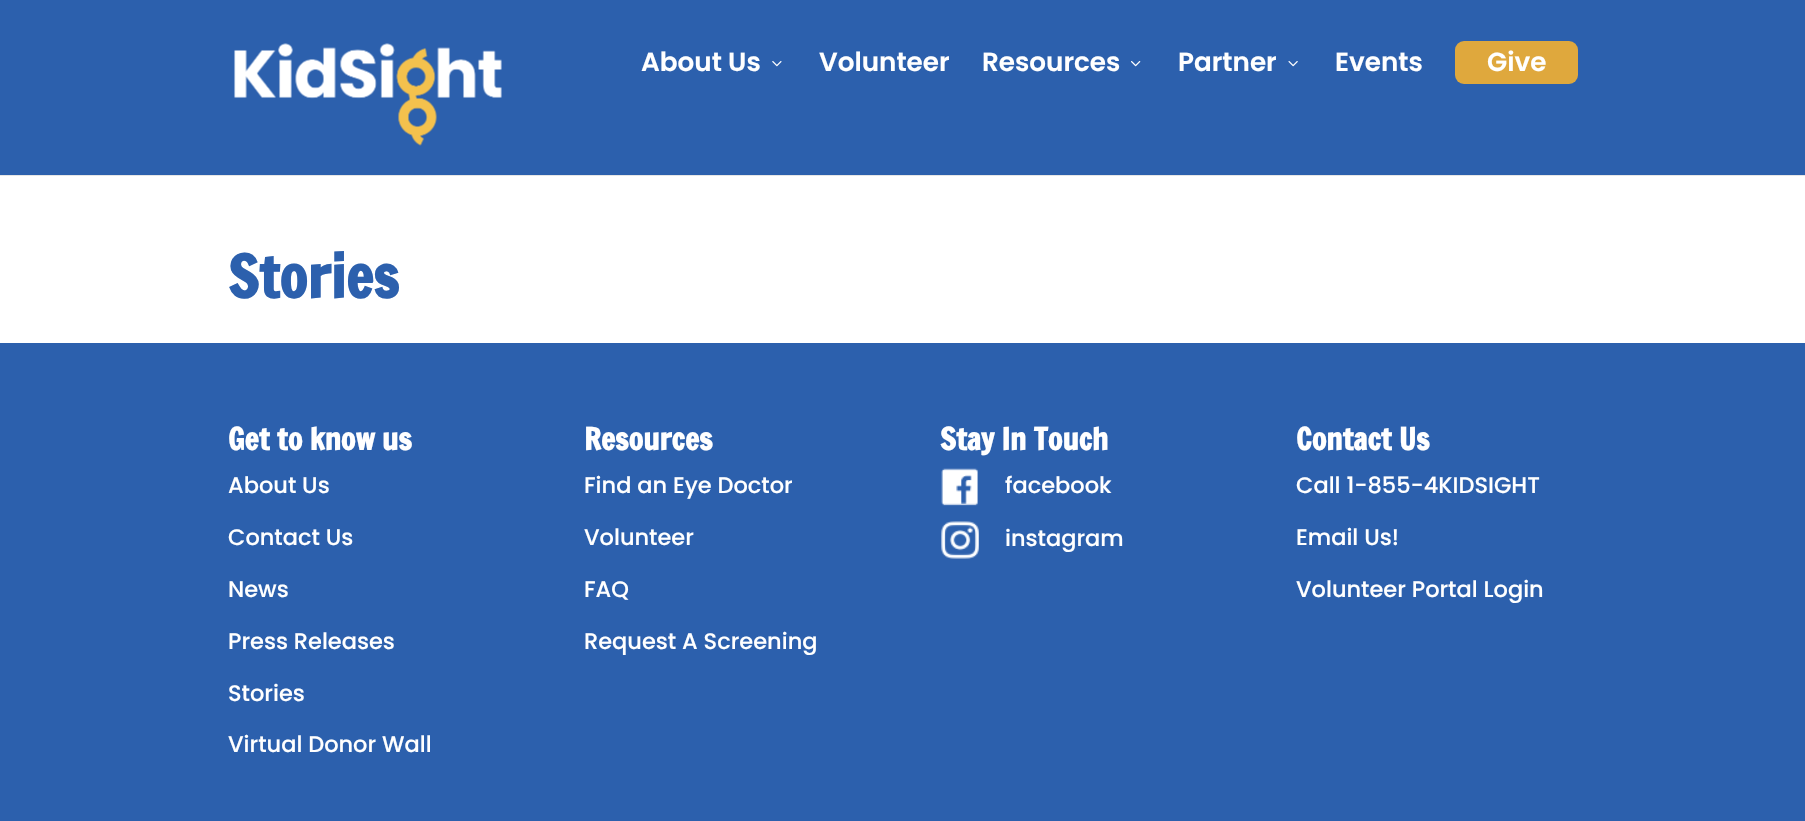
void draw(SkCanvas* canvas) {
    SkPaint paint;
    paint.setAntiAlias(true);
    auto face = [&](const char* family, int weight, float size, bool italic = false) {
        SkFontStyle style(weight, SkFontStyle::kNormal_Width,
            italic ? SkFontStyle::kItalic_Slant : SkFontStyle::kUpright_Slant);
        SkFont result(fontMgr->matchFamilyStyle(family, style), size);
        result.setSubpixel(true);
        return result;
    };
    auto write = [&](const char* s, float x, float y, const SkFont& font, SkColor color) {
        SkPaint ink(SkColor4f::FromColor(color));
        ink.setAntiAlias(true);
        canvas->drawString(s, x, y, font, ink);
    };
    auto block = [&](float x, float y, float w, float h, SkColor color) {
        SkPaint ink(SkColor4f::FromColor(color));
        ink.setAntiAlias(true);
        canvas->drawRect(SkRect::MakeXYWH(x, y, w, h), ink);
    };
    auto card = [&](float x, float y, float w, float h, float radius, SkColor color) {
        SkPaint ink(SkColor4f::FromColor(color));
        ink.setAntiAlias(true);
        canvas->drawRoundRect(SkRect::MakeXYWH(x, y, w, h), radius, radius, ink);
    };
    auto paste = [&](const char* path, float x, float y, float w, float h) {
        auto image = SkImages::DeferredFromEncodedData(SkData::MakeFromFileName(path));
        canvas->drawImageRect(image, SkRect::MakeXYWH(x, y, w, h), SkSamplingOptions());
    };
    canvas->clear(SK_ColorWHITE);
    block(0, 175, 1805, 1, SkColorSetRGB(230, 230, 230));
    block(0, 0, 1805, 175, SkColorSetRGB(44, 96, 173));
    paste("pic1.png", 234, 43, 268, 103);
    auto kFont1 = face("Poppins", 600, 26.25f);
    write("About Us", 641, 71, kFont1, SK_ColorWHITE);
    paste("pic2.png", 772, 61, 10, 6);
    write("Volunteer", 819, 71, kFont1, SK_ColorWHITE);
    write("Resources", 982, 71, kFont1, SK_ColorWHITE);
    paste("pic3.png", 1131, 61, 10, 6);
    write("Partner", 1178, 71, kFont1, SK_ColorWHITE);
    paste("pic4.png", 1288, 61, 10, 6);
    write("Events", 1335, 71, kFont1, SK_ColorWHITE);
    card(1455, 41, 123, 43, 9, SkColorSetRGB(223, 168, 61));
    write("Give", 1487, 71, kFont1, SK_ColorWHITE);
    auto kFont2 = face("Francois One", 700, 57.5f);
    write("Stories", 228, 298, kFont2, SkColorSetRGB(44, 96, 173));
    block(0, 343, 1805, 478, SkColorSetRGB(44, 96, 173));
    auto kFont3 = face("Francois One", 700, 30);
    write("Get to know us", 228, 450, kFont3, SK_ColorWHITE);
    auto kFont4 = face("Poppins", 500, 22.5f);
    write("About Us", 228, 493, kFont4, SK_ColorWHITE);
    write("Contact Us", 228, 545, kFont4, SK_ColorWHITE);
    write("News", 228, 597, kFont4, SK_ColorWHITE);
    write("Press Releases", 228, 649, kFont4, SK_ColorWHITE);
    write("Stories", 228, 701, kFont4, SK_ColorWHITE);
    write("Virtual Donor Wall", 228, 752, kFont4, SK_ColorWHITE);
    write("Resources", 584, 450, kFont3, SK_ColorWHITE);
    write("Find an Eye Doctor", 584, 493, kFont4, SK_ColorWHITE);
    write("Volunteer", 584, 545, kFont4, SK_ColorWHITE);
    write("FAQ", 584, 597, kFont4, SK_ColorWHITE);
    write("Request A Screening", 584, 649, kFont4, SK_ColorWHITE);
    write("Stay In Touch", 940, 450, kFont3, SK_ColorWHITE);
    paste("pic5.png", 941, 468, 37, 38);
    write("facebook", 1005, 493, kFont4, SK_ColorWHITE);
    paste("pic6.png", 941, 521, 38, 38);
    write("instagram", 1005, 546, kFont4, SK_ColorWHITE);
    write("Contact Us", 1296, 450, kFont3, SK_ColorWHITE);
    write("Call 1-855-4KIDSIGHT", 1296, 493, kFont4, SK_ColorWHITE);
    write("Email Us!", 1296, 545, kFont4, SK_ColorWHITE);
    write("Volunteer Portal Login", 1296, 597, kFont4, SK_ColorWHITE);
}
